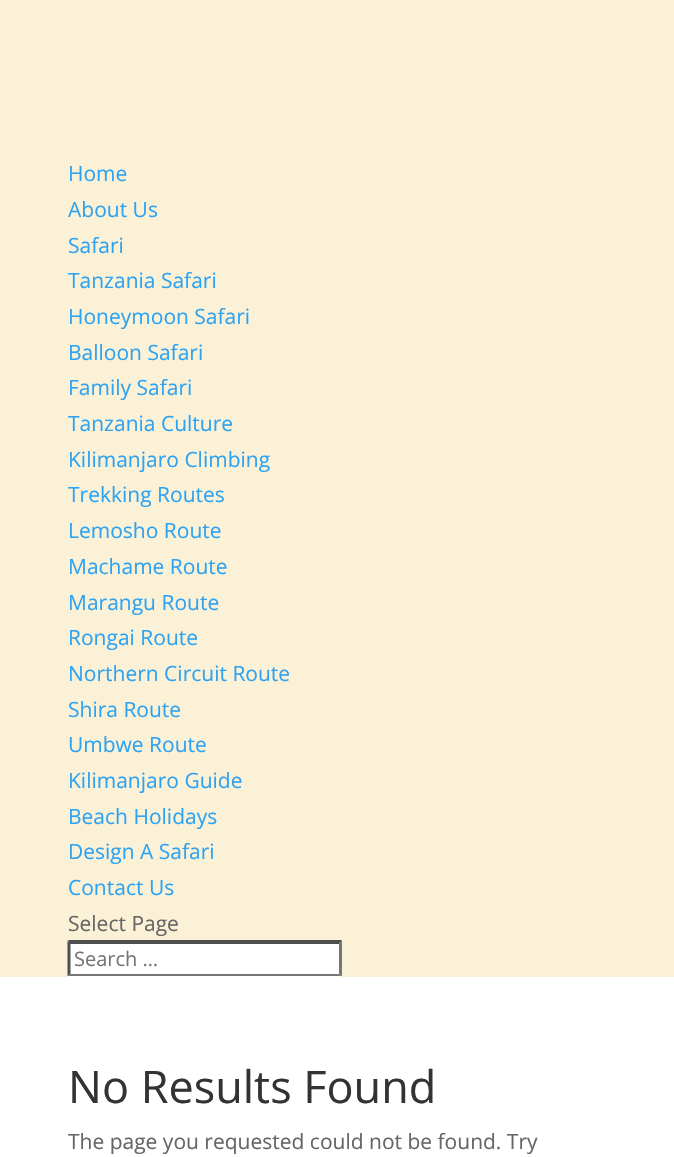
void draw(SkCanvas* canvas) {
    SkPaint paint;
    paint.setAntiAlias(true);
    auto face = [&](const char* family, int weight, float size, bool italic = false) {
        SkFontStyle style(weight, SkFontStyle::kNormal_Width,
            italic ? SkFontStyle::kItalic_Slant : SkFontStyle::kUpright_Slant);
        SkFont result(fontMgr->matchFamilyStyle(family, style), size);
        result.setSubpixel(true);
        return result;
    };
    auto write = [&](const char* s, float x, float y, const SkFont& font, SkColor color) {
        SkPaint ink(SkColor4f::FromColor(color));
        ink.setAntiAlias(true);
        canvas->drawString(s, x, y, font, ink);
    };
    auto block = [&](float x, float y, float w, float h, SkColor color) {
        SkPaint ink(SkColor4f::FromColor(color));
        ink.setAntiAlias(true);
        canvas->drawRect(SkRect::MakeXYWH(x, y, w, h), ink);
    };
    canvas->clear(SkColorSetRGB(250, 241, 215));
    auto kFont1 = face("Open Sans", 400, 21);
    write("Home", 68, 181, kFont1, SkColorSetRGB(46, 163, 242));
    write("About Us", 68, 217, kFont1, SkColorSetRGB(46, 163, 242));
    write("Safari", 68, 253, kFont1, SkColorSetRGB(46, 163, 242));
    write("Tanzania Safari", 68, 288, kFont1, SkColorSetRGB(46, 163, 242));
    write("Honeymoon Safari", 68, 324, kFont1, SkColorSetRGB(46, 163, 242));
    write("Balloon Safari", 68, 360, kFont1, SkColorSetRGB(46, 163, 242));
    write("Family Safari", 68, 395, kFont1, SkColorSetRGB(46, 163, 242));
    write("Tanzania Culture", 68, 431, kFont1, SkColorSetRGB(46, 163, 242));
    write("Kilimanjaro Climbing", 68, 467, kFont1, SkColorSetRGB(46, 163, 242));
    write("Trekking Routes", 68, 502, kFont1, SkColorSetRGB(46, 163, 242));
    write("Lemosho Route", 68, 538, kFont1, SkColorSetRGB(46, 163, 242));
    write("Machame Route", 68, 574, kFont1, SkColorSetRGB(46, 163, 242));
    write("Marangu Route", 68, 610, kFont1, SkColorSetRGB(46, 163, 242));
    write("Rongai Route", 68, 645, kFont1, SkColorSetRGB(46, 163, 242));
    write("Northern Circuit Route", 68, 681, kFont1, SkColorSetRGB(46, 163, 242));
    write("Shira Route", 68, 717, kFont1, SkColorSetRGB(46, 163, 242));
    write("Umbwe Route", 68, 752, kFont1, SkColorSetRGB(46, 163, 242));
    write("Kilimanjaro Guide", 68, 788, kFont1, SkColorSetRGB(46, 163, 242));
    write("Beach Holidays", 68, 824, kFont1, SkColorSetRGB(46, 163, 242));
    write("Design A Safari", 68, 859, kFont1, SkColorSetRGB(46, 163, 242));
    write("Contact Us", 68, 895, kFont1, SkColorSetRGB(46, 163, 242));
    write("Select Page", 68, 931, kFont1, SkColorSetRGB(102, 102, 102));
    block(68, 941, 274, 36, SK_ColorWHITE);
    paint.setColor(SkColorSetRGB(79, 79, 79));
    canvas->drawPath(SkPathBuilder().moveTo(68, 940).lineTo(342, 940).lineTo(339, 944).lineTo(70, 944).close().detach(), paint);
    paint.setColor(SkColorSetRGB(118, 118, 118));
    canvas->drawPath(SkPathBuilder().moveTo(342, 940.5f).lineTo(342, 976.5f).lineTo(339, 973.5f).lineTo(339, 943.5f).close().detach(), paint);
    canvas->drawPath(SkPathBuilder().moveTo(342, 976).lineTo(68, 976).lineTo(70, 974).lineTo(339, 974).close().detach(), paint);
    paint.setColor(SkColorSetRGB(79, 79, 79));
    canvas->drawPath(SkPathBuilder().moveTo(67.5f, 976.5f).lineTo(67.5f, 940.5f).lineTo(70.5f, 943.5f).lineTo(70.5f, 973.5f).close().detach(), paint);
    auto kFont2 = face("Open Sans", 400, 20);
    write("Search …", 74, 966, kFont2, SkColorSetRGB(117, 117, 117));
    block(0, 977, 674, 180, SK_ColorWHITE);
    auto kFont3 = face("Open Sans", 400, 45);
    write("No Results Found", 68, 1103, kFont3, SkColorSetRGB(51, 51, 51));
    write("The page you requested could not be found. Try", 68, 1149, kFont1, SkColorSetRGB(102, 102, 102));
}
